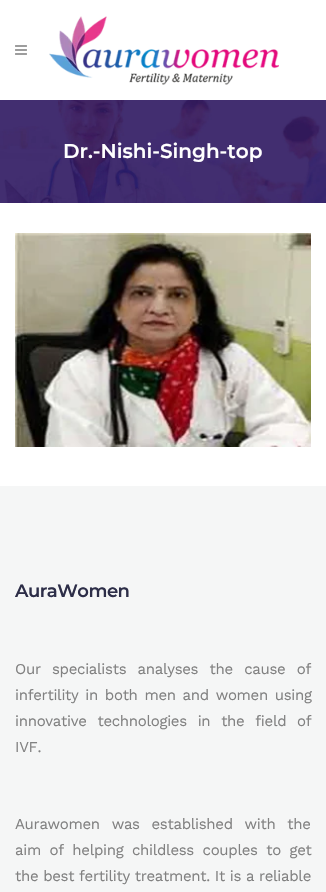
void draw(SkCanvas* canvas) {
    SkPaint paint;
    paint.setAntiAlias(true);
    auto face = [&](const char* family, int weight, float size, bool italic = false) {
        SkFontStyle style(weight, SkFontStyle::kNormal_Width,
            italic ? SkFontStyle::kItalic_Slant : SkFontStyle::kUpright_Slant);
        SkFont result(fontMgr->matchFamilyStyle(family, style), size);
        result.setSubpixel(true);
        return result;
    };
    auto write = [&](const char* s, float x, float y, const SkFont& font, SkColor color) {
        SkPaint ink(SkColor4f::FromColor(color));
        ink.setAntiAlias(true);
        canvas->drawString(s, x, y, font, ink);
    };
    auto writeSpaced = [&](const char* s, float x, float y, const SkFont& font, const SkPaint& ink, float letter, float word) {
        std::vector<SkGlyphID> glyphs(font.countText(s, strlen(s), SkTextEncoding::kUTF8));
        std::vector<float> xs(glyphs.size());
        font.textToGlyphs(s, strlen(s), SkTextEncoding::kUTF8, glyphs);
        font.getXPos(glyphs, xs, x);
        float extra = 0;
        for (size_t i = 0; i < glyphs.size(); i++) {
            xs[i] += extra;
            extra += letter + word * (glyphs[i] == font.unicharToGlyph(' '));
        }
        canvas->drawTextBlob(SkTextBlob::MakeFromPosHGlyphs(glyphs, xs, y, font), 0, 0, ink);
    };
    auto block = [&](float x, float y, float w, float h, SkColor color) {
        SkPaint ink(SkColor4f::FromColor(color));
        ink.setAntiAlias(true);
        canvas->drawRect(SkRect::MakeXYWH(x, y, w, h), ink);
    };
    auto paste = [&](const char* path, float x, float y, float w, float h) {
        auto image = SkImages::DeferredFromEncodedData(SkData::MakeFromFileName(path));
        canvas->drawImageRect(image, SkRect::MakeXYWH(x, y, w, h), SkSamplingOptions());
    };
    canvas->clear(SK_ColorWHITE);
    paste("pic1.png", 15, 45, 12, 10);
    paste("pic2.png", 49, 16, 230, 69);
    paste("pic3.png", 0, 100, 326, 103);
    auto kFont1 = face("Montserrat", 600, 20);
    write("Dr.-Nishi-Singh-top", 63, 158, kFont1, SK_ColorWHITE);
    paste("pic4.png", 15, 233, 296, 214);
    block(0, 486, 326, 406, SkColorSetRGB(245, 246, 246));
    auto kFont2 = face("Montserrat", 600, 18);
    paint.setColor(SkColorSetRGB(45, 46, 72));
    writeSpaced("AuraWomen", 15, 597, kFont2, paint, -0.5f, 0);
    auto kFont3 = face("Work Sans", 400, 15);
    paint.setColor(SkColorSetRGB(129, 129, 129));
    writeSpaced("Our specialists analyses the cause of", 15, 674, kFont3, paint, -0.3f, 6.5f);
    writeSpaced("infertility in both men and women using", 15, 700, kFont3, paint, -0.3f, 2);
    writeSpaced("innovative technologies in the field of", 15, 726, kFont3, paint, -0.3f, 6);
    writeSpaced("IVF.", 15, 752, kFont3, paint, -0.3f, 0);
    writeSpaced("Aurawomen was established with the", 15, 829, kFont3, paint, -0.3f, 7);
    writeSpaced("aim of helping childless couples to get", 15, 855, kFont3, paint, -0.3f, 3.75f);
    writeSpaced("the best fertility treatment. It is a reliable", 15, 881, kFont3, paint, -0.3f, 0);
}
